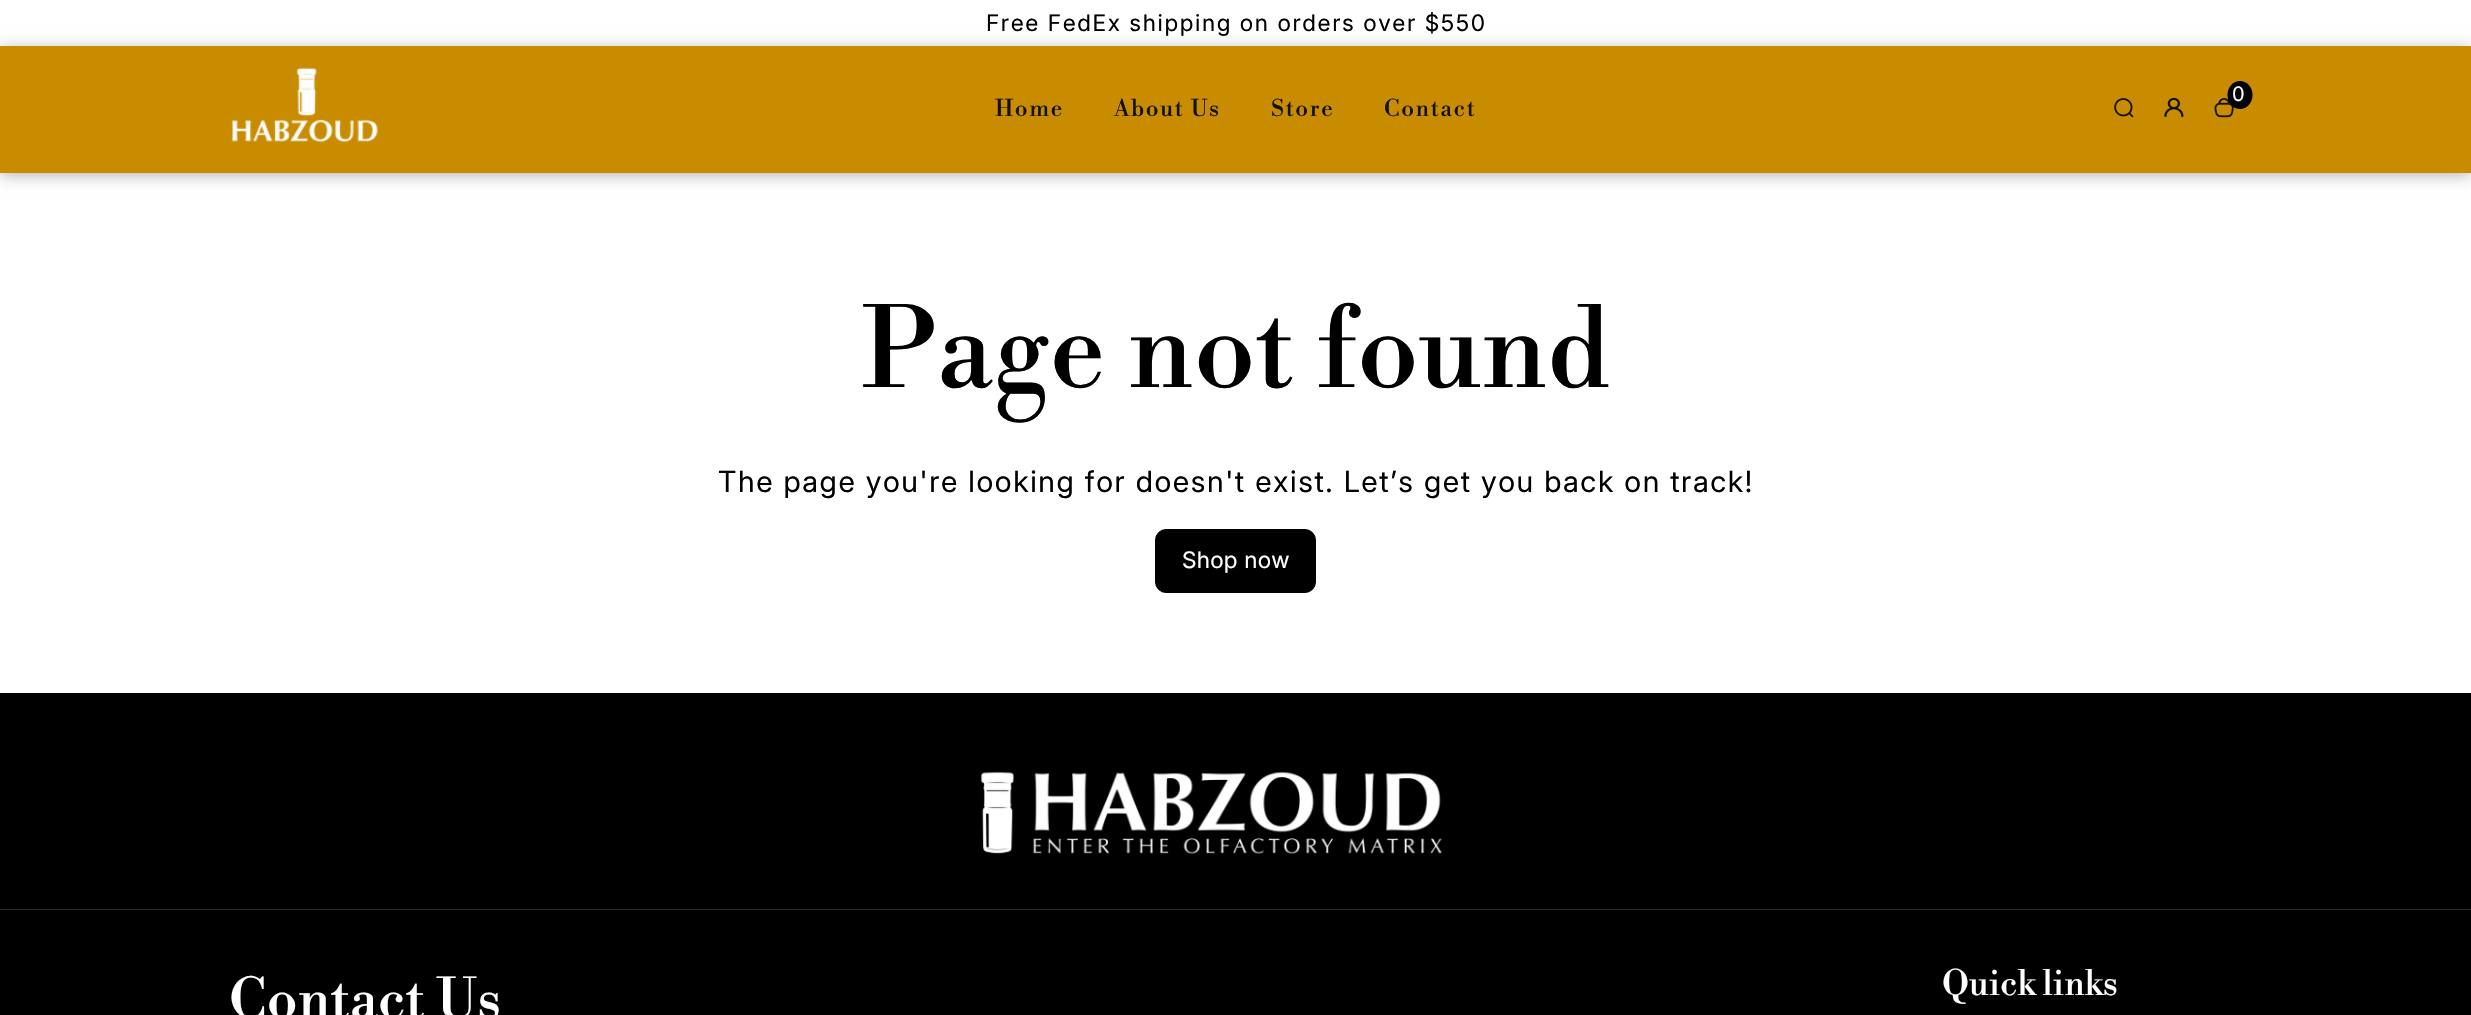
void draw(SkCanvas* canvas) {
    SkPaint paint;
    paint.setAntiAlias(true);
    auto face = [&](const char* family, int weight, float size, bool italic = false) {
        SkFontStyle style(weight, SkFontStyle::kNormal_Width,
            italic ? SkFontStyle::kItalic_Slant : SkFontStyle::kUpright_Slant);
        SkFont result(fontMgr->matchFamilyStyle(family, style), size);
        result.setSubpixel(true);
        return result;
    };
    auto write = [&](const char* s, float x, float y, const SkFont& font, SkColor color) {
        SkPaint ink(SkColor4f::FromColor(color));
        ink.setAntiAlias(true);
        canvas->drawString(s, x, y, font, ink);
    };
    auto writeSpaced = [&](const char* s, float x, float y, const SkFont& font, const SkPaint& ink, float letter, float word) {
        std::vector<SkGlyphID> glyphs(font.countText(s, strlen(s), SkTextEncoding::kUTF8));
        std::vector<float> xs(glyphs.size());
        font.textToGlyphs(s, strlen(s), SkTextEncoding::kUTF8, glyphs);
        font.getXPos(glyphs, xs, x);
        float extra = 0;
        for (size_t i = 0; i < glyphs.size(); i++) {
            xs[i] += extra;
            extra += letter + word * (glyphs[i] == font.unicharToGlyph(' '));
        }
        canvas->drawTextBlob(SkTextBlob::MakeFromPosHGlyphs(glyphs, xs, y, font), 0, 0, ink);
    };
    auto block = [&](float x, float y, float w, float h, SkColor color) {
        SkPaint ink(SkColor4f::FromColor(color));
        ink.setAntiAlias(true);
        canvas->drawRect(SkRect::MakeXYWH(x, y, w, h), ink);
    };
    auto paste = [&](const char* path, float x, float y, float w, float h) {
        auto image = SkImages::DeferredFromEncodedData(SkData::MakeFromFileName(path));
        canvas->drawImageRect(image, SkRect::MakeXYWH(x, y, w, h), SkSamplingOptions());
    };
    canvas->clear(SK_ColorWHITE);
    auto kFont1 = face("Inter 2", 400, 22.75f);
    paint.setColor(SK_ColorBLACK);
    writeSpaced("Free FedEx shipping on orders over $550", 986, 31, kFont1, paint, 1.6f, 0);
    paint.setColor(SkColorSetARGB(77, 0, 0, 0));
    paint.setMaskFilter(SkMaskFilter::MakeBlur(kNormal_SkBlurStyle, 7.5f));
    canvas->drawRect(SkRect::MakeXYWH(0, 49, 2471, 126), paint);
    paint.setMaskFilter(nullptr);
    block(0, 46, 2471, 127, SkColorSetRGB(201, 140, 0));
    paste("pic1.png", 231, 67, 147, 76);
    paste("pic2.png", 2214, 98, 20, 20);
    paint.setColor(SK_ColorBLACK);
    canvas->drawOval(SkRect::MakeXYWH(2227.5f, 81, 25, 28), paint);
    auto kFont2 = face("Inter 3", 400, 20);
    paint.setColor(SK_ColorWHITE);
    writeSpaced("0", 2232, 101, kFont2, paint, 1.6f, 0);
    paste("pic3.png", 2114, 98, 20, 20);
    paste("pic4.png", 2164, 97, 20, 20);
    auto kFont3 = face("Libre Bodoni", 400, 22.75f);
    paint.setColor(SkColorSetRGB(18, 18, 18));
    writeSpaced("Home", 995, 116, kFont3, paint, 1.6f, 0);
    writeSpaced("About Us", 1114, 116, kFont3, paint, 1.6f, 0);
    writeSpaced("Store", 1271, 116, kFont3, paint, 1.6f, 0);
    writeSpaced("Contact", 1384, 116, kFont3, paint, 1.6f, 0);
    auto kFont4 = face("Libre Bodoni", 400, 110);
    write("Page not found", 862, 387, kFont4, SK_ColorBLACK);
    auto kFont5 = face("Inter", 400, 29.25f);
    paint.setColor(SK_ColorBLACK);
    writeSpaced("The page you're looking for doesn't exist. Let’s get you back on track!", 718, 492, kFont5, paint, 1.6f, 0);
    canvas->drawRoundRect(SkRect::MakeXYWH(1155.5f, 529.5f, 160, 63), 10.5f, 10.5f, paint);
    paint.setStyle(SkPaint::kStroke_Style);
    paint.setStrokeWidth(1);
    canvas->drawRoundRect(SkRect::MakeXYWH(1155.5f, 529.5f, 160, 63), 10.5f, 10.5f, paint);
    paint.setStyle(SkPaint::kFill_Style);
    paint.setColor(SK_ColorWHITE);
    writeSpaced("Shop now", 1182, 568, kFont1, paint, 0.25f, 0);
    block(0, 693, 2471, 322, SK_ColorBLACK);
    block(0, 909, 2471, 1, SkColorSetRGB(54, 45, 37));
    paste("pic5.png", 980, 771, 462, 83);
    auto kFont6 = face("Libre Bodoni", 400, 55);
    write("Contact Us", 229, 1018, kFont6, SK_ColorWHITE);
    auto kFont7 = face("Libre Bodoni", 400, 34.5f);
    write("Quick links", 1942, 995, kFont7, SK_ColorWHITE);
}
